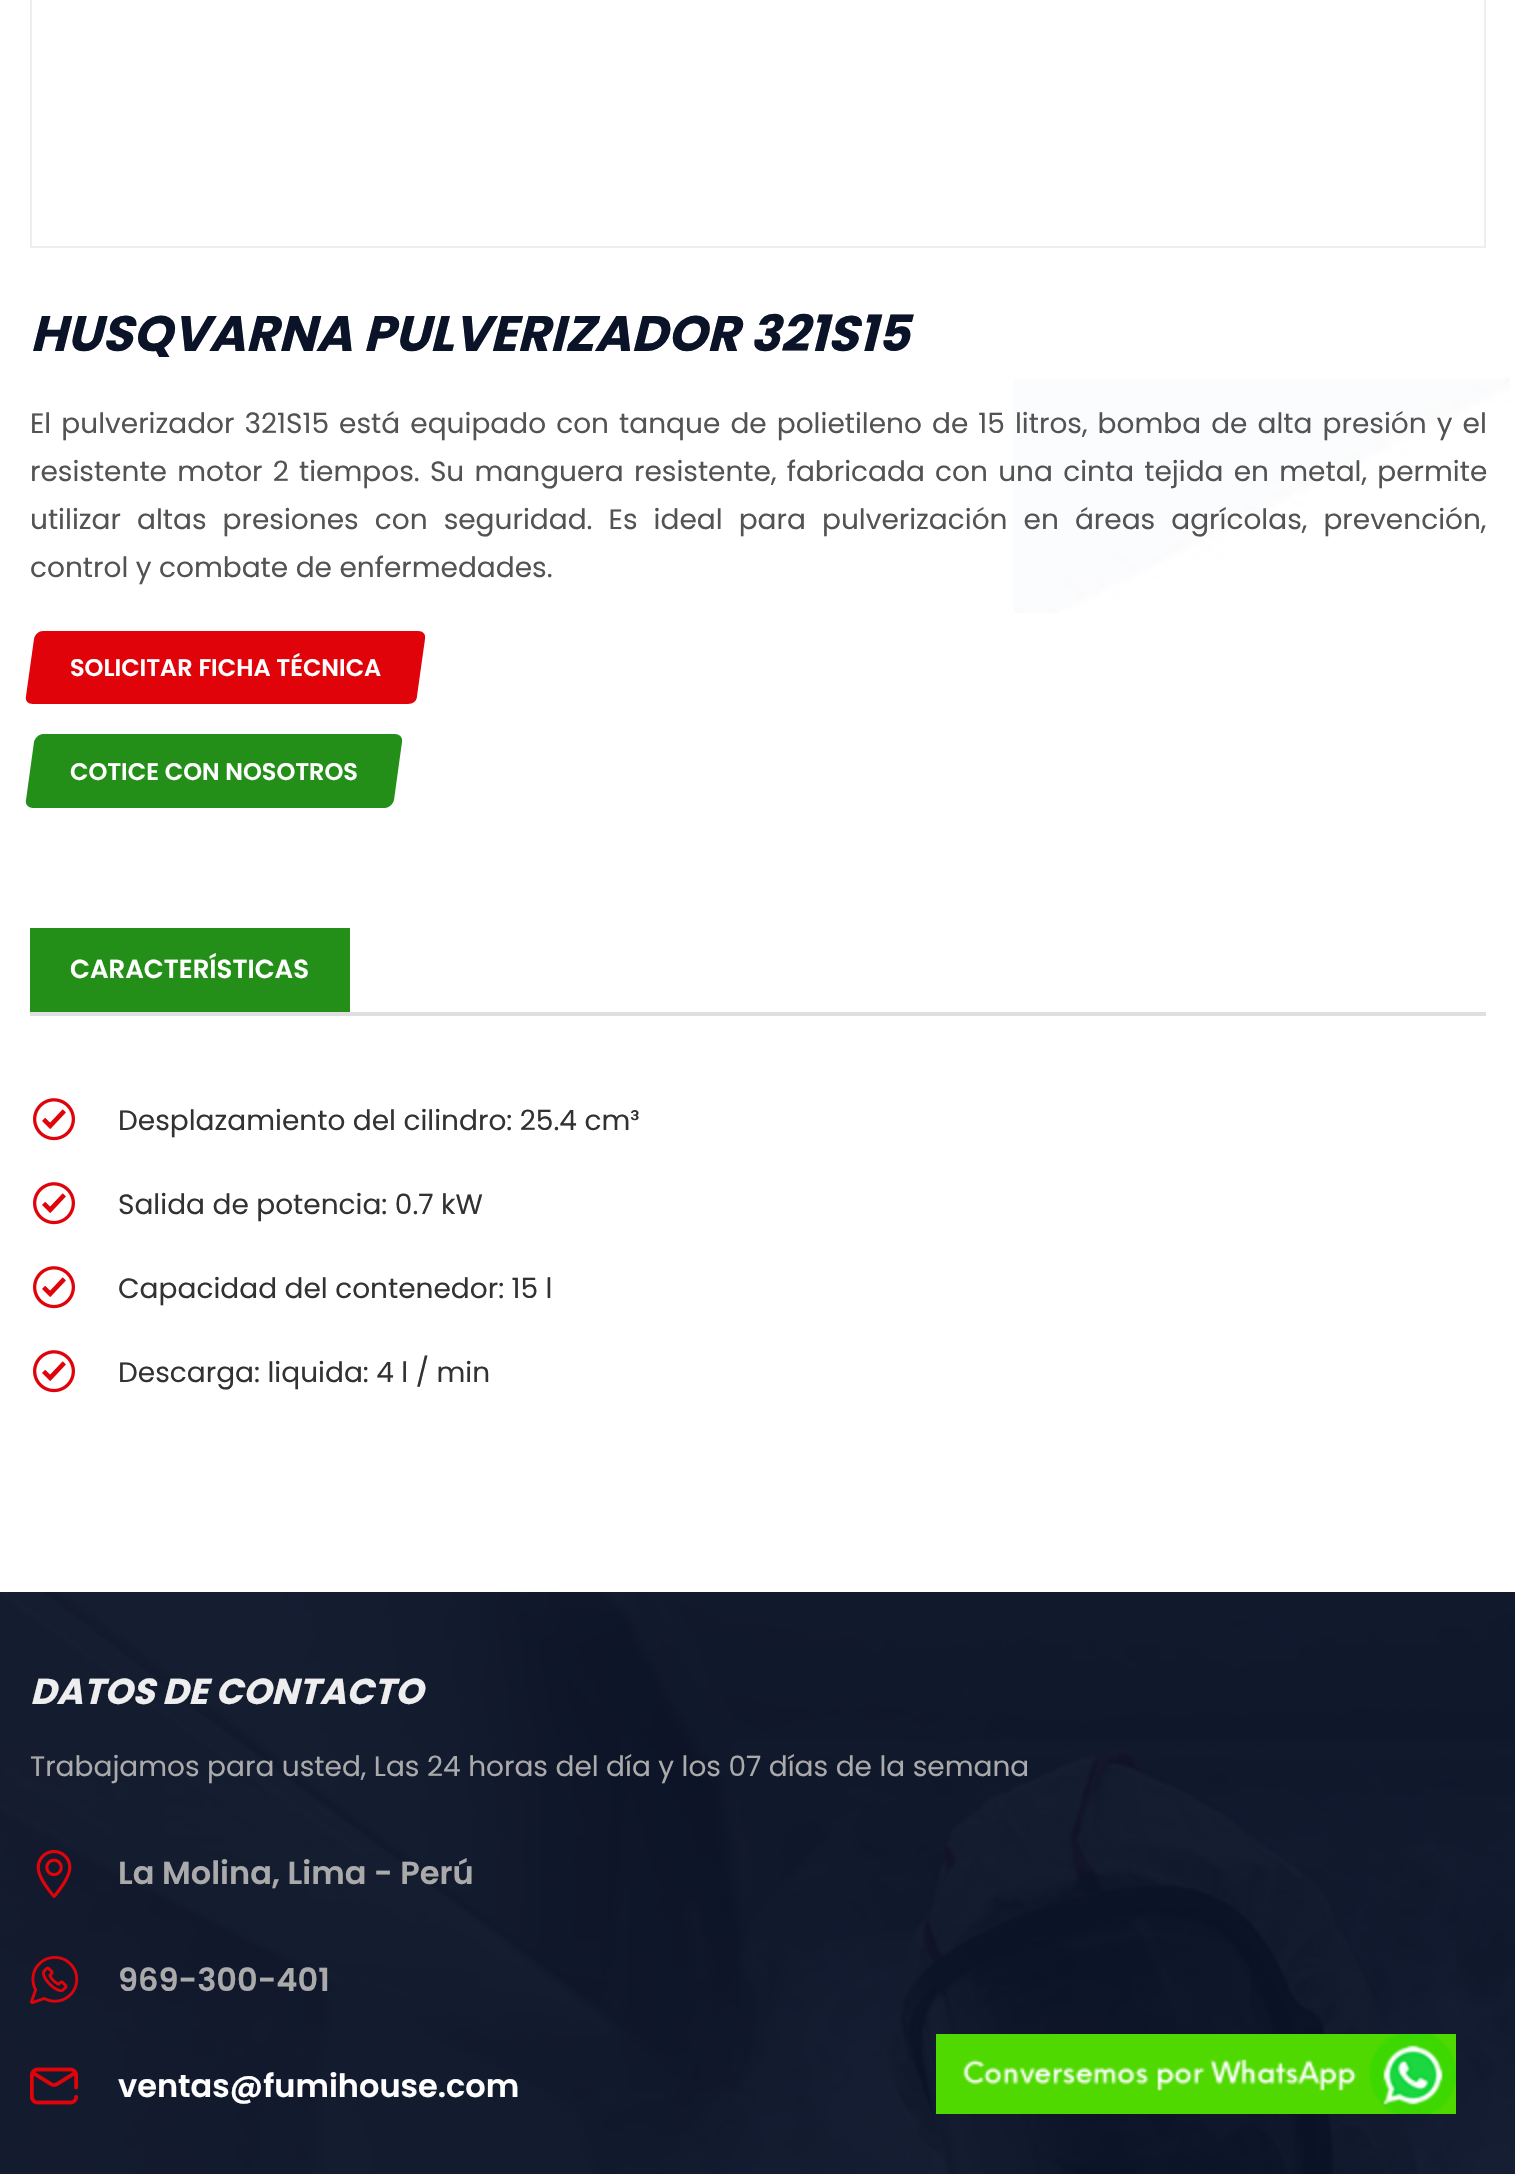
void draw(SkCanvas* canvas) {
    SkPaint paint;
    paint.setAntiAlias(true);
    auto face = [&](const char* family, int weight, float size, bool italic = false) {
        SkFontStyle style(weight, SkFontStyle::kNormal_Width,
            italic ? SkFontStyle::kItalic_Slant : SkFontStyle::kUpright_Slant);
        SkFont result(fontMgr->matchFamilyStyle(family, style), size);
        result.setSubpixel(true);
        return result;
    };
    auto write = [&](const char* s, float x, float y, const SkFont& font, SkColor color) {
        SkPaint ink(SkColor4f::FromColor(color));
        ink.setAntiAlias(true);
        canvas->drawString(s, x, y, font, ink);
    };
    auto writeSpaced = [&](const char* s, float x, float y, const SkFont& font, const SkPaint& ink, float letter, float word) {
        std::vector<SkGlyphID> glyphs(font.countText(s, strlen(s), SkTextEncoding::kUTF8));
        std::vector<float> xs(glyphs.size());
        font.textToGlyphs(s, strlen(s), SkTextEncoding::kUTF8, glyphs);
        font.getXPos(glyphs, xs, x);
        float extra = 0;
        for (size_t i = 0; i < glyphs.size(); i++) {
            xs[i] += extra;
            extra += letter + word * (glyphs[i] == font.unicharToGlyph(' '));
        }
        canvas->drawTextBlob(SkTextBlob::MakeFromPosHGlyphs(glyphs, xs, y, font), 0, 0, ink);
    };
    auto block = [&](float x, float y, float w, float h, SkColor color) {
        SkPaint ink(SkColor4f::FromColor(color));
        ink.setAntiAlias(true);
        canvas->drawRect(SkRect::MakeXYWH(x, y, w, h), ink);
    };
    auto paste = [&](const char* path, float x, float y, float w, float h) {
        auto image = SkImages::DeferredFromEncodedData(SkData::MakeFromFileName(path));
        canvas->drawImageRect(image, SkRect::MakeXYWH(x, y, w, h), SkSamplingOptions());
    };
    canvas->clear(SK_ColorWHITE);
    paint.setStyle(SkPaint::kStroke_Style);
    paint.setStrokeWidth(2);
    paint.setColor(SkColorSetRGB(238, 238, 238));
    canvas->drawRect(SkRect::MakeXYWH(31, -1, 1454, 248), paint);
    auto kFont1 = face("Poppins", 700, 50, true);
    write("HUSQVARNA PULVERIZADOR 321S15", 30, 351, kFont1, SkColorSetRGB(10, 19, 40));
    paste("pic2.png", 1014, 378, 496, 235);
    auto kFont2 = face("Poppins", 400, 28);
    paint.setStyle(SkPaint::kFill_Style);
    paint.setColor(SkColorSetRGB(83, 83, 83));
    writeSpaced("El pulverizador 321S15 está equipado con tanque de polietileno de 15 litros, bomba de alta presión y el", 30, 433, kFont2, paint, 0, 2.6f);
    writeSpaced("resistente motor 2 tiempos. Su manguera resistente, fabricada con una cinta tejida en metal, permite", 30, 481, kFont2, paint, 0, 2.75f);
    writeSpaced("utilizar altas presiones con seguridad. Es ideal para pulverización en áreas agrícolas, prevención,", 30, 529, kFont2, paint, 0, 8.6f);
    write("control y combate de enfermedades.", 30, 577, kFont2, SkColorSetRGB(83, 83, 83));
    paint.setColor(SkColorSetRGB(224, 3, 10));
    canvas->drawPath(SkPathBuilder().moveTo(43, 631).lineTo(418, 631).cubicTo(423, 631, 426, 634, 425, 639).lineTo(417, 696).cubicTo(417, 701, 413, 704, 408, 704).lineTo(33, 704).cubicTo(28, 704, 25, 701, 26, 696).lineTo(34, 639).cubicTo(35, 634, 39, 631, 43, 631).close().detach(), paint);
    auto kFont3 = face("Poppins", 600, 24);
    write("SOLICITAR FICHA TÉCNICA", 70, 676, kFont3, SK_ColorWHITE);
    paint.setColor(SkColorSetRGB(35, 143, 24));
    canvas->drawPath(SkPathBuilder().moveTo(43, 734).lineTo(395, 734).cubicTo(400, 734, 403, 738, 402, 742).lineTo(394, 800).cubicTo(393, 804, 389, 808, 385, 808).lineTo(33, 808).cubicTo(28, 808, 25, 804, 26, 800).lineTo(34, 742).cubicTo(35, 738, 39, 734, 43, 734).close().detach(), paint);
    write("COTICE CON NOSOTROS", 70, 780, kFont3, SK_ColorWHITE);
    block(30, 1012, 1456, 4, SkColorSetRGB(223, 223, 223));
    block(30, 928, 320, 84, SkColorSetRGB(35, 143, 24));
    auto kFont4 = face("Poppins", 600, 26);
    write("CARACTERÍSTICAS", 70, 978, kFont4, SK_ColorWHITE);
    paste("pic1.png", 33, 1098, 42, 43);
    write("Desplazamiento del cilindro: 25.4 cm³", 118, 1130, kFont2, SkColorSetRGB(50, 50, 50));
    paste("pic1.png", 33, 1182, 42, 43);
    write("Salida de potencia: 0.7 kW", 118, 1214, kFont2, SkColorSetRGB(50, 50, 50));
    paste("pic1.png", 33, 1266, 42, 43);
    write("Capacidad del contenedor: 15 l", 118, 1298, kFont2, SkColorSetRGB(50, 50, 50));
    paste("pic1.png", 33, 1350, 42, 43);
    write("Descarga: liquida: 4 l / min", 118, 1382, kFont2, SkColorSetRGB(50, 50, 50));
    paste("pic3.png", 0, 1592, 1515, 582);
    auto kFont5 = face("Poppins", 700, 36, true);
    write("DATOS DE CONTACTO", 30, 1704, kFont5, SkColorSetRGB(238, 238, 238));
    write("Trabajamos para usted, Las 24 horas del día y los 07 días de la semana", 30, 1776, kFont2, SkColorSetRGB(170, 170, 170));
    paste("pic4.png", 36, 1850, 36, 48);
    auto kFont6 = face("Poppins", 600, 32);
    write("La Molina, Lima - Perú", 118, 1884, kFont6, SkColorSetRGB(170, 170, 170));
    paste("pic5.png", 30, 1956, 49, 48);
    write("969-300-401", 118, 1991, kFont6, SkColorSetRGB(170, 170, 170));
    paste("pic6.png", 30, 2067, 48, 38);
    write("ventas@fumihouse.com", 118, 2097, kFont6, SK_ColorWHITE);
    paste("pic7.png", 936, 2034, 520, 80);
}
